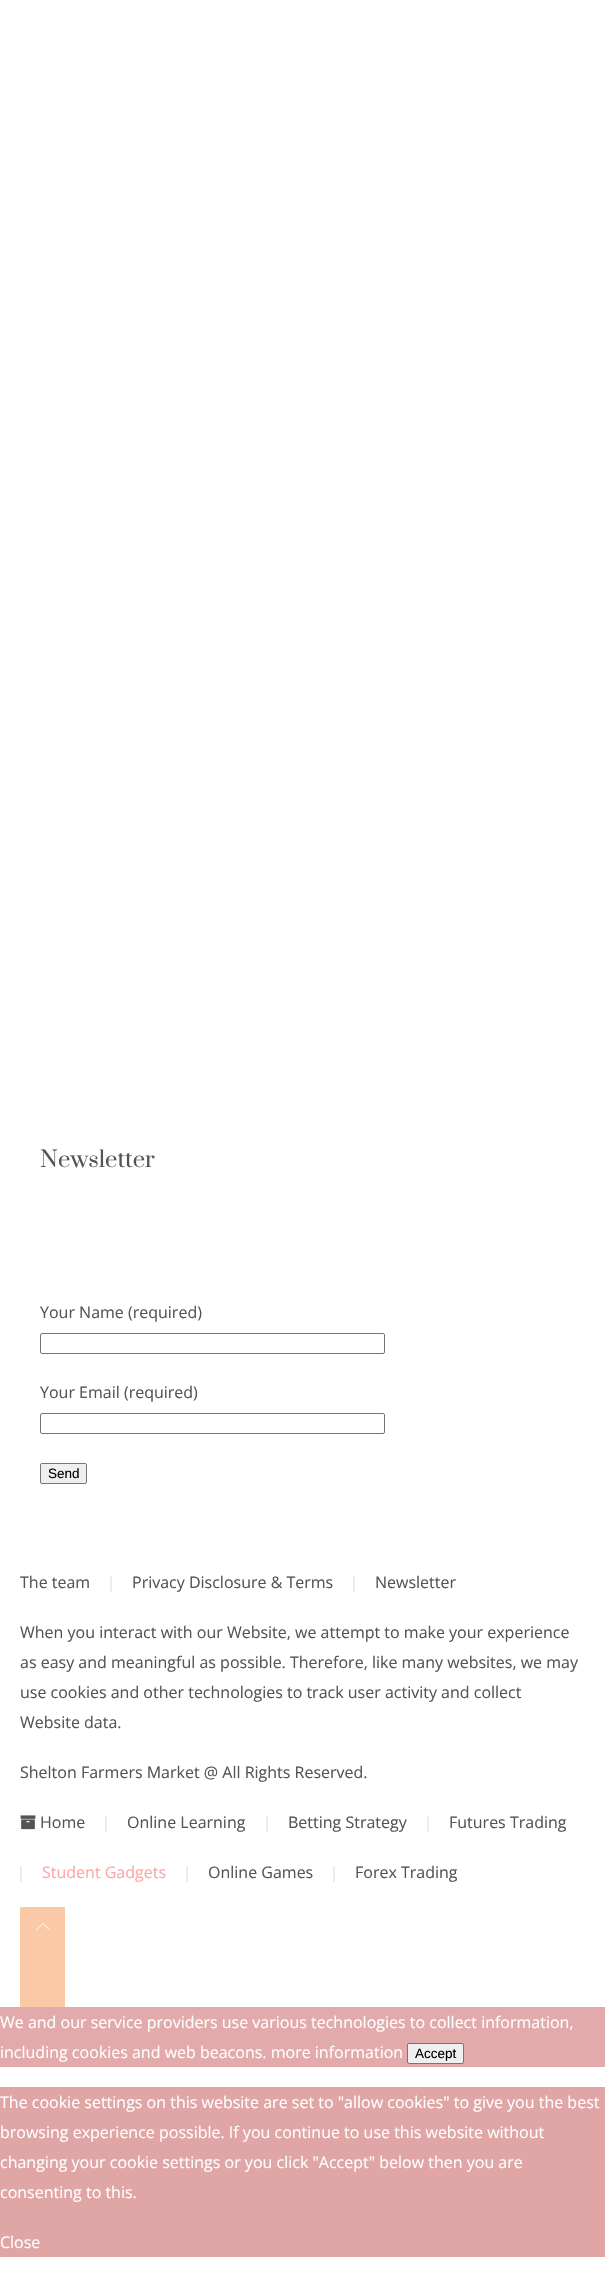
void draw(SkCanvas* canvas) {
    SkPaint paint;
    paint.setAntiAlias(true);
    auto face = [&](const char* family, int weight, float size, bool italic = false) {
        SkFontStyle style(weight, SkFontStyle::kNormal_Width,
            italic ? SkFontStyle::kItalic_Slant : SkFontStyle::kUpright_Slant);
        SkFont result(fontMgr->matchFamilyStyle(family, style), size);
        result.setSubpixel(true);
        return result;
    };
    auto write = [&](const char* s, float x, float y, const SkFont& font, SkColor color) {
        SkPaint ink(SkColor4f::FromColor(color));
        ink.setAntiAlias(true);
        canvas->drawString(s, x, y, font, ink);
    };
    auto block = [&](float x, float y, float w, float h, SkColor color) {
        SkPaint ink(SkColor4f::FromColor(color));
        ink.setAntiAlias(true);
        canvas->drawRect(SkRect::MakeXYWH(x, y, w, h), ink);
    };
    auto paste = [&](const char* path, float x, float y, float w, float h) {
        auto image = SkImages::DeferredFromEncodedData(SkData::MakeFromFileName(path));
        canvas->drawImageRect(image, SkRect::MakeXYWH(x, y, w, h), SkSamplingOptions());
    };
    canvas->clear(SK_ColorWHITE);
    auto kFont1 = face("Prata", 400, 22);
    write("Newsletter", 40, 1167, kFont1, SkColorSetRGB(86, 84, 83));
    auto kFont2 = face("Open Sans", 400, 16);
    write("Your Name (required)", 40, 1318, kFont2, SkColorSetRGB(86, 84, 83));
    paint.setStyle(SkPaint::kStroke_Style);
    paint.setStrokeWidth(1);
    paint.setColor(SkColorSetRGB(118, 118, 118));
    canvas->drawRoundRect(SkRect::MakeXYWH(40.5f, 1333.5f, 344, 20), 1.5f, 1.5f, paint);
    write("Your Email (required)", 40, 1398, kFont2, SkColorSetRGB(86, 84, 83));
    canvas->drawRoundRect(SkRect::MakeXYWH(40.5f, 1413.5f, 344, 20), 1.5f, 1.5f, paint);
    paint.setStyle(SkPaint::kFill_Style);
    paint.setColor(SkColorSetRGB(239, 239, 239));
    canvas->drawRoundRect(SkRect::MakeXYWH(40.5f, 1463.5f, 46, 20), 1.5f, 1.5f, paint);
    paint.setStyle(SkPaint::kStroke_Style);
    paint.setColor(SkColorSetRGB(118, 118, 118));
    canvas->drawRoundRect(SkRect::MakeXYWH(40.5f, 1463.5f, 46, 20), 1.5f, 1.5f, paint);
    auto kFont3 = face("Liberation Sans", 400, 13.5f);
    write("Send", 48, 1478, kFont3, SK_ColorBLACK);
    write("The team", 20, 1588, kFont2, SkColorSetRGB(86, 84, 83));
    block(110, 1576, 2, 16, SkColorSetRGB(236, 237, 237));
    write("Privacy Disclosure & Terms", 132, 1588, kFont2, SkColorSetRGB(86, 84, 83));
    block(353, 1576, 2, 16, SkColorSetRGB(236, 237, 237));
    write("Newsletter", 375, 1588, kFont2, SkColorSetRGB(86, 84, 83));
    write("When you interact with our Website, we attempt to make your experience", 20, 1638, kFont2, SkColorSetRGB(86, 84, 83));
    write("as easy and meaningful as possible. Therefore, like many websites, we may", 20, 1668, kFont2, SkColorSetRGB(86, 84, 83));
    write("use cookies and other technologies to track user activity and collect", 20, 1698, kFont2, SkColorSetRGB(86, 84, 83));
    write("Website data.", 20, 1728, kFont2, SkColorSetRGB(86, 84, 83));
    write("Shelton Farmers Market @ All Rights Reserved.", 20, 1778, kFont2, SkColorSetRGB(86, 84, 83));
    paste("pic1.png", 20, 1815, 16, 15);
    write("Home", 40, 1828, kFont2, SkColorSetRGB(86, 84, 83));
    block(105, 1816, 2, 16, SkColorSetRGB(236, 237, 237));
    write("Online Learning", 127, 1828, kFont2, SkColorSetRGB(86, 84, 83));
    block(266, 1816, 2, 16, SkColorSetRGB(236, 237, 237));
    write("Betting Strategy", 288, 1828, kFont2, SkColorSetRGB(86, 84, 83));
    block(427, 1816, 2, 16, SkColorSetRGB(236, 237, 237));
    write("Futures Trading", 449, 1828, kFont2, SkColorSetRGB(86, 84, 83));
    block(20, 1866, 2, 16, SkColorSetRGB(236, 237, 237));
    write("Student Gadgets", 42, 1878, kFont2, SkColorSetRGB(252, 167, 167));
    block(186, 1866, 2, 16, SkColorSetRGB(236, 237, 237));
    write("Online Games", 208, 1878, kFont2, SkColorSetRGB(86, 84, 83));
    block(333, 1866, 2, 16, SkColorSetRGB(236, 237, 237));
    write("Forex Trading", 355, 1878, kFont2, SkColorSetRGB(86, 84, 83));
    block(20, 1907, 45, 100, SkColorSetRGB(252, 201, 167));
    paint.setColor(SK_ColorWHITE);
    canvas->drawPath(SkPathBuilder().moveTo(36.5f, 1930).lineTo(43, 1923.5f).lineTo(49.5f, 1930).detach(), paint);
    block(0, 2007, 605, 60, SkColorSetRGB(226, 170, 170));
    write("We and our service providers use various technologies to collect information,", 0, 2028, kFont2, SK_ColorWHITE);
    write("including cookies and web beacons. more information", 0, 2058, kFont2, SK_ColorWHITE);
    paint.setStyle(SkPaint::kFill_Style);
    paint.setColor(SkColorSetRGB(239, 239, 239));
    canvas->drawRoundRect(SkRect::MakeXYWH(407.5f, 2043.5f, 56, 20), 1.5f, 1.5f, paint);
    paint.setStyle(SkPaint::kStroke_Style);
    paint.setColor(SkColorSetRGB(118, 118, 118));
    canvas->drawRoundRect(SkRect::MakeXYWH(407.5f, 2043.5f, 56, 20), 1.5f, 1.5f, paint);
    write("Accept", 415, 2058, kFont3, SK_ColorBLACK);
    block(0, 2087, 605, 170, SkColorSetRGB(224, 165, 165));
    write("The cookie settings on this website are set to \"allow cookies\" to give you the best", 0, 2108, kFont2, SK_ColorWHITE);
    write("browsing experience possible. If you continue to use this website without", 0, 2138, kFont2, SK_ColorWHITE);
    write("changing your cookie settings or you click \"Accept\" below then you are", 0, 2168, kFont2, SK_ColorWHITE);
    write("consenting to this.", 0, 2198, kFont2, SK_ColorWHITE);
    write("Close", 0, 2248, kFont2, SK_ColorWHITE);
}
